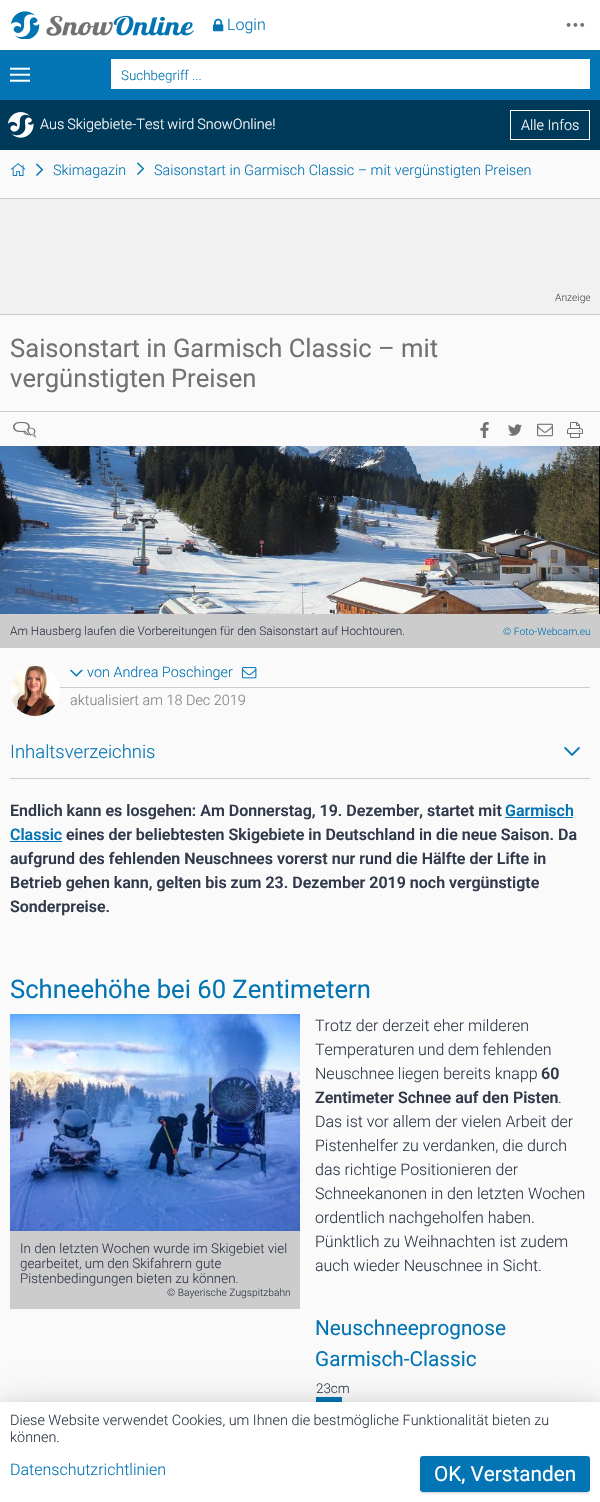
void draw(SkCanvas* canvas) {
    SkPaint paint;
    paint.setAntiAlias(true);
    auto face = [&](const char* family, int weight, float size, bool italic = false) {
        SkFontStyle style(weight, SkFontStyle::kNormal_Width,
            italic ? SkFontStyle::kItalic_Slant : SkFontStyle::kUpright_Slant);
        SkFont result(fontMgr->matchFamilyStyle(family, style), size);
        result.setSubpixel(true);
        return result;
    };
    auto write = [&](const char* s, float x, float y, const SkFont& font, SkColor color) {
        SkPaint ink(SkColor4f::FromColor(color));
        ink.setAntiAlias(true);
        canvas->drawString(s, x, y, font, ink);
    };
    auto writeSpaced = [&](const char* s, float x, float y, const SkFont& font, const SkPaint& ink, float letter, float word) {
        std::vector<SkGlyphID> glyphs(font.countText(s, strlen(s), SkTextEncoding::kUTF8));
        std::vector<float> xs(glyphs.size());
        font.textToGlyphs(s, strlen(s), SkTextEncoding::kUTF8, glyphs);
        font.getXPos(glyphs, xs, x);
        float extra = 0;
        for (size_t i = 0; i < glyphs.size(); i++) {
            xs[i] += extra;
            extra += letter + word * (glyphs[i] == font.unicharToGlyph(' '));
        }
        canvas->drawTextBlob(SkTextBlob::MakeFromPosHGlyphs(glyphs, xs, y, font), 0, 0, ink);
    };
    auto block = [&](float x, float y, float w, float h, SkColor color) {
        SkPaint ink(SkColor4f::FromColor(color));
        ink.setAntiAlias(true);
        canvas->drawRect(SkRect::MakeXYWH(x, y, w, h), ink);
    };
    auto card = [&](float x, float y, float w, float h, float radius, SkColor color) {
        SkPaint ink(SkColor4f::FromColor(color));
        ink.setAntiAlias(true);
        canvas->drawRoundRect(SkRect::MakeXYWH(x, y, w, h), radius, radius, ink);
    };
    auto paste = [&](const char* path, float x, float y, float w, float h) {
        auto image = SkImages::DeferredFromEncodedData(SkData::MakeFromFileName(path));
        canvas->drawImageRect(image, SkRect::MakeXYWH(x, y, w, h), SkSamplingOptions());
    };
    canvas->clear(SkColorSetRGB(250, 250, 250));
    block(0, 0, 600, 50, SK_ColorWHITE);
    paste("pic1.png", 11, 11, 183, 28);
    paste("pic2.png", 213, 18, 11, 14);
    auto kFont1 = face("Roboto", 300, 16);
    write("Login", 227, 30, kFont1, SkColorSetRGB(3, 117, 180));
    paste("pic3.png", 566, 23, 19, 4);
    block(0, 50, 600, 50, SkColorSetRGB(3, 117, 180));
    paste("pic4.png", 10, 67, 20, 15);
    block(111, 59, 479, 30, SK_ColorWHITE);
    auto kFont2 = face("Roboto", 300, 13.4f);
    write("Suchbegriff ...", 121, 80, kFont2, SkColorSetRGB(3, 117, 180));
    block(0, 100, 600, 50, SkColorSetRGB(0, 58, 90));
    paste("pic5.png", 8, 112, 26, 26);
    auto kFont3 = face("Roboto", 300, 14.4f);
    paint.setColor(SK_ColorWHITE);
    writeSpaced("Aus Skigebiete-Test wird SnowOnline!", 40, 129, kFont3, paint, 0, -0.5f);
    paint.setStyle(SkPaint::kStroke_Style);
    paint.setStrokeWidth(1);
    canvas->drawRect(SkRect::MakeXYWH(510.5f, 110.5f, 79, 29), paint);
    write("Alle Infos", 521, 130, kFont3, SK_ColorWHITE);
    paste("pic6.png", 10, 163, 16, 13);
    paste("pic7.png", 36, 163, 8, 13);
    write("Skimagazin", 53, 175, kFont3, SkColorSetRGB(3, 117, 180));
    paste("pic8.png", 137, 162, 7, 13);
    write("Saisonstart in Garmisch Classic – mit vergünstigten Preisen", 154, 175, kFont3, SkColorSetRGB(3, 117, 180));
    block(0, 199, 600, 115, SkColorSetRGB(241, 241, 241));
    block(0, 198, 600, 1, SkColorSetRGB(204, 204, 204));
    block(0, 314, 600, 1, SkColorSetRGB(204, 204, 204));
    auto kFont4 = face("Roboto", 300, 10.25f);
    write("Anzeige", 555, 301, kFont4, SkColorSetRGB(82, 82, 82));
    auto kFont5 = face("Roboto", 400, 25.6f);
    write("Saisonstart in Garmisch Classic – mit", 10, 357, kFont5, SkColorSetRGB(114, 114, 114));
    paint.setStyle(SkPaint::kFill_Style);
    paint.setColor(SkColorSetRGB(114, 114, 114));
    writeSpaced("vergünstigten Preisen", 10, 387, kFont5, paint, 0, -1);
    block(0, 411, 600, 1, SkColorSetRGB(204, 204, 204));
    paste("pic9.png", 13, 422, 24, 16);
    paste("pic10.png", 480, 422, 9, 16);
    paste("pic11.png", 508, 424, 14, 12);
    paste("pic12.png", 537, 423, 16, 14);
    paste("pic13.png", 567, 422, 16, 16);
    paste("pic14.png", 0, 446, 600, 168);
    block(0, 614, 600, 34, SkColorSetRGB(204, 204, 204));
    auto kFont6 = face("Roboto", 300, 11.85f);
    write("Am Hausberg laufen die Vorbereitungen für den Saisonstart auf Hochtouren.", 10, 635, kFont6, SkColorSetRGB(49, 57, 74));
    write("© Foto-Webcam.eu", 503, 635, kFont4, SkColorSetRGB(3, 117, 180));
    paste("pic15.png", 10, 666, 50, 50);
    block(60, 687, 530, 1, SkColorSetRGB(204, 204, 204));
    paste("pic16.png", 70, 669, 13, 8);
    write("von Andrea Poschinger", 87, 677, kFont3, SkColorSetRGB(3, 117, 180));
    paste("pic17.png", 242, 667, 15, 12);
    write("aktualisiert am 18 Dec 2019", 70, 705, kFont3, SkColorSetRGB(130, 130, 130));
    block(10, 778, 580, 1, SkColorSetRGB(204, 204, 204));
    auto kFont7 = face("Roboto", 300, 18.5f);
    write("Inhaltsverzeichnis", 10, 758, kFont7, SkColorSetRGB(3, 117, 180));
    paste("pic18.png", 564, 747, 16, 9);
    auto kFont8 = face("Roboto", 600, 16);
    write("Endlich kann es losgehen: Am Donnerstag, 19. Dezember, startet mit", 10, 816, kFont8, SkColorSetRGB(49, 57, 74));
    write("Garmisch", 505, 816, kFont8, SkColorSetRGB(3, 117, 180));
    block(505, 817, 68, 1, SkColorSetRGB(3, 117, 180));
    write("Classic", 10, 840, kFont8, SkColorSetRGB(3, 117, 180));
    block(10, 841, 52, 1, SkColorSetRGB(3, 117, 180));
    write("eines der beliebtesten Skigebiete in Deutschland in die neue Saison. Da", 66, 840, kFont8, SkColorSetRGB(49, 57, 74));
    write("aufgrund des fehlenden Neuschnees vorerst nur rund die Hälfte der Lifte in", 10, 864, kFont8, SkColorSetRGB(49, 57, 74));
    write("Betrieb gehen kann, gelten bis zum 23. Dezember 2019 noch vergünstigte", 10, 888, kFont8, SkColorSetRGB(49, 57, 74));
    write("Sonderpreise.", 10, 912, kFont8, SkColorSetRGB(49, 57, 74));
    write("Schneehöhe bei 60 Zentimetern", 10, 998, kFont5, SkColorSetRGB(3, 117, 180));
    paste("pic19.png", 10, 1014, 290, 217);
    block(10, 1231, 290, 78, SkColorSetRGB(204, 204, 204));
    write("In den letzten Wochen wurde im Skigebiet viel", 20, 1253, kFont2, SkColorSetRGB(49, 57, 74));
    write("gearbeitet, um den Skifahrern gute", 20, 1268, kFont2, SkColorSetRGB(49, 57, 74));
    write("Pistenbedingungen bieten zu können.", 20, 1283, kFont2, SkColorSetRGB(49, 57, 74));
    write("© Bayerische Zugspitzbahn", 167, 1296, kFont4, SkColorSetRGB(49, 57, 74));
    write("Trotz der derzeit eher milderen", 315, 1031, kFont1, SkColorSetRGB(49, 57, 74));
    paint.setColor(SkColorSetRGB(49, 57, 74));
    writeSpaced("Temperaturen und dem fehlenden", 315, 1055, kFont1, paint, 0, -0.5f);
    write("Neuschnee liegen bereits knapp", 315, 1079, kFont1, SkColorSetRGB(49, 57, 74));
    write("60", 541, 1079, kFont8, SkColorSetRGB(49, 57, 74));
    write("Zentimeter Schnee auf den Pisten", 315, 1103, kFont8, SkColorSetRGB(49, 57, 74));
    write(".", 558, 1103, kFont1, SkColorSetRGB(49, 57, 74));
    write("Das ist vor allem der vielen Arbeit der", 315, 1127, kFont1, SkColorSetRGB(49, 57, 74));
    write("Pistenhelfer zu verdanken, die durch", 315, 1151, kFont1, SkColorSetRGB(49, 57, 74));
    write("das richtige Positionieren der", 315, 1175, kFont1, SkColorSetRGB(49, 57, 74));
    write("Schneekanonen in den letzten Wochen", 315, 1199, kFont1, SkColorSetRGB(49, 57, 74));
    write("ordentlich nachgeholfen haben.", 315, 1223, kFont1, SkColorSetRGB(49, 57, 74));
    write("Pünktlich zu Weihnachten ist zudem", 315, 1247, kFont1, SkColorSetRGB(49, 57, 74));
    write("auch wieder Neuschnee in Sicht.", 315, 1271, kFont1, SkColorSetRGB(49, 57, 74));
    auto kFont9 = face("Roboto", 400, 20.75f);
    write("Neuschneeprognose", 315, 1335, kFont9, SkColorSetRGB(3, 117, 180));
    write("Garmisch-Classic", 315, 1366, kFont9, SkColorSetRGB(3, 117, 180));
    block(316, 1397, 26, 5, SkColorSetRGB(3, 117, 180));
    write("23cm", 316, 1393, kFont2, SkColorSetRGB(49, 57, 74));
    paint.setColor(SkColorSetARGB(56, 0, 0, 0));
    paint.setMaskFilter(SkMaskFilter::MakeBlur(kNormal_SkBlurStyle, 9));
    canvas->drawRect(SkRect::MakeXYWH(0, 1412, 600, 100), paint);
    paint.setMaskFilter(nullptr);
    paint.setColor(SkColorSetARGB(64, 0, 0, 0));
    paint.setMaskFilter(SkMaskFilter::MakeBlur(kNormal_SkBlurStyle, 22.5f));
    canvas->drawRect(SkRect::MakeXYWH(0, 1416, 600, 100), paint);
    paint.setMaskFilter(nullptr);
    block(0, 1402, 600, 100, SK_ColorWHITE);
    write("Diese Website verwendet Cookies, um Ihnen die bestmögliche Funktionalität bieten zu", 10, 1425, kFont3, SkColorSetRGB(49, 57, 74));
    write("können.", 10, 1442, kFont3, SkColorSetRGB(49, 57, 74));
    write("Datenschutzrichtlinien", 10, 1475, kFont1, SkColorSetRGB(3, 117, 180));
    paint.setColor(SkColorSetARGB(31, 153, 153, 153));
    paint.setMaskFilter(SkMaskFilter::MakeBlur(kNormal_SkBlurStyle, 2.5f));
    canvas->drawRoundRect(SkRect::MakeXYWH(420, 1457, 170, 36), 3, 3, paint);
    paint.setMaskFilter(nullptr);
    paint.setColor(SkColorSetARGB(51, 153, 153, 153));
    paint.setMaskFilter(SkMaskFilter::MakeBlur(kNormal_SkBlurStyle, 0.5f));
    canvas->drawRoundRect(SkRect::MakeXYWH(422, 1461, 166, 32), 1, 1, paint);
    paint.setMaskFilter(nullptr);
    paint.setColor(SkColorSetARGB(36, 153, 153, 153));
    paint.setMaskFilter(SkMaskFilter::MakeBlur(kNormal_SkBlurStyle, 1));
    canvas->drawRoundRect(SkRect::MakeXYWH(420, 1458, 170, 36), 3, 3, paint);
    paint.setMaskFilter(nullptr);
    card(420, 1456, 170, 36, 3, SkColorSetRGB(3, 117, 180));
    write("OK, Verstanden", 434, 1481, kFont9, SK_ColorWHITE);
}
